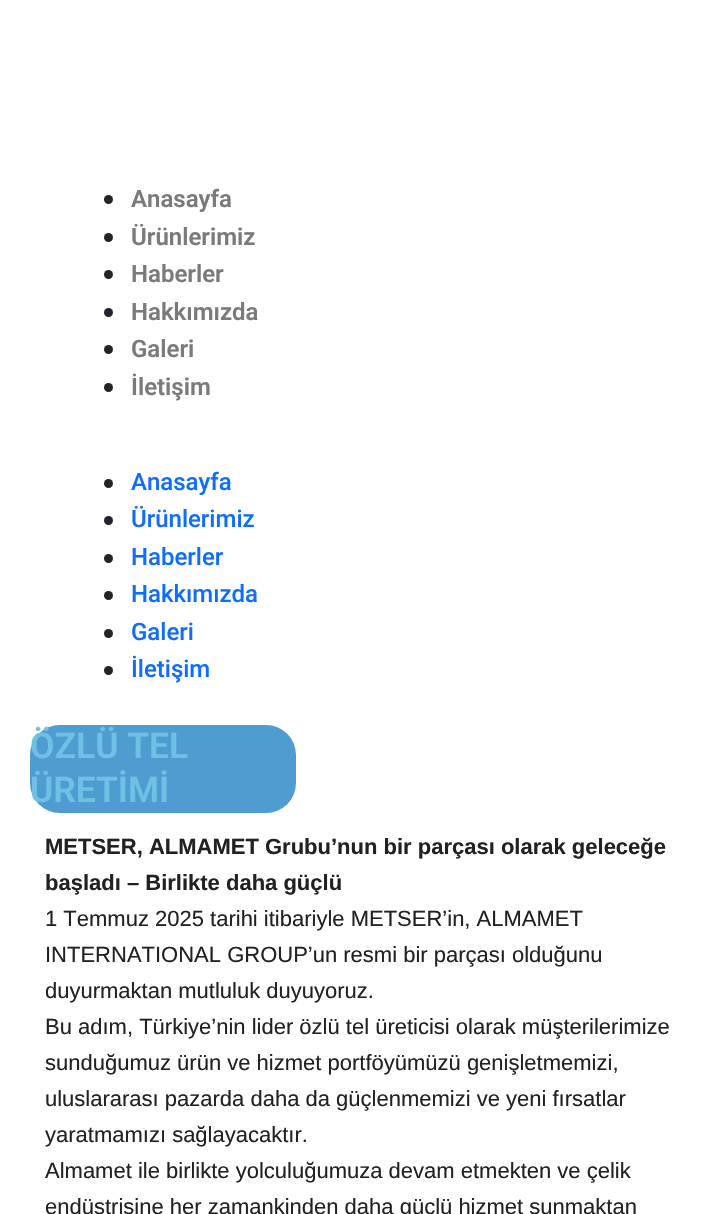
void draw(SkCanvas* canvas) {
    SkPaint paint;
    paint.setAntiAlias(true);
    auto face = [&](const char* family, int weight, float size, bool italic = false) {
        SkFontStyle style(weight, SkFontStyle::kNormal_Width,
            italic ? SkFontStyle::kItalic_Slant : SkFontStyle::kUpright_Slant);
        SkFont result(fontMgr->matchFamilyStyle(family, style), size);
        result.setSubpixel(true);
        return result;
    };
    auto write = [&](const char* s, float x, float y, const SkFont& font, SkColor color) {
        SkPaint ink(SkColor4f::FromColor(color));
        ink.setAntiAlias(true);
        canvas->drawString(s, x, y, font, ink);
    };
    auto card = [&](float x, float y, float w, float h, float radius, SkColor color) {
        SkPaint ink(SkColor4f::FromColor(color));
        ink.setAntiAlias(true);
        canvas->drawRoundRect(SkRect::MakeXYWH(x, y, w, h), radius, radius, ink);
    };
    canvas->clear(SK_ColorWHITE);
    paint.setColor(SkColorSetRGB(33, 37, 41));
    canvas->drawCircle(108.5f, 199.5f, 4.5f, paint);
    auto kFont1 = face("Roboto", 600, 24);
    write("Anasayfa", 131, 207, kFont1, SkColorSetRGB(122, 122, 122));
    canvas->drawCircle(108.5f, 237.5f, 4.5f, paint);
    write("Ürünlerimiz", 131, 245, kFont1, SkColorSetRGB(122, 122, 122));
    canvas->drawCircle(108.5f, 274.5f, 4.5f, paint);
    write("Haberler", 131, 282, kFont1, SkColorSetRGB(122, 122, 122));
    canvas->drawCircle(108.5f, 312.5f, 4.5f, paint);
    write("Hakkımızda", 131, 320, kFont1, SkColorSetRGB(122, 122, 122));
    canvas->drawCircle(108.5f, 349.5f, 4.5f, paint);
    write("Galeri", 131, 357, kFont1, SkColorSetRGB(122, 122, 122));
    canvas->drawCircle(108.5f, 387.5f, 4.5f, paint);
    write("İletişim", 131, 395, kFont1, SkColorSetRGB(122, 122, 122));
    canvas->drawCircle(108.5f, 483.5f, 4.5f, paint);
    auto kFont2 = face("Roboto", 500, 24);
    write("Anasayfa", 131, 490, kFont2, SkColorSetRGB(13, 110, 253));
    canvas->drawCircle(108.5f, 520.5f, 4.5f, paint);
    write("Ürünlerimiz", 131, 527, kFont2, SkColorSetRGB(13, 110, 253));
    canvas->drawCircle(108.5f, 558.5f, 4.5f, paint);
    write("Haberler", 131, 565, kFont2, SkColorSetRGB(13, 110, 253));
    canvas->drawCircle(108.5f, 595.5f, 4.5f, paint);
    write("Hakkımızda", 131, 602, kFont2, SkColorSetRGB(13, 110, 253));
    canvas->drawCircle(108.5f, 633.5f, 4.5f, paint);
    write("Galeri", 131, 640, kFont2, SkColorSetRGB(13, 110, 253));
    canvas->drawCircle(108.5f, 670.5f, 4.5f, paint);
    write("İletişim", 131, 677, kFont2, SkColorSetRGB(13, 110, 253));
    card(30, 725, 266, 88, 30, SkColorSetRGB(78, 156, 208));
    auto kFont3 = face("Roboto", 600, 35.5f);
    write("ÖZLÜ TEL", 30, 758, kFont3, SkColorSetRGB(110, 193, 228));
    write("ÜRETİMİ", 30, 802, kFont3, SkColorSetRGB(110, 193, 228));
    auto kFont4 = face("Liberation Sans", 700, 22);
    write("METSER, ALMAMET Grubu’nun bir parçası olarak geleceğe", 45, 854, kFont4, SkColorSetRGB(33, 33, 33));
    write("başladı – Birlikte daha güçlü", 45, 890, kFont4, SkColorSetRGB(33, 33, 33));
    auto kFont5 = face("Liberation Sans", 400, 22);
    write("1 Temmuz 2025 tarihi itibariyle METSER’in, ALMAMET", 45, 926, kFont5, SkColorSetRGB(33, 33, 33));
    write("INTERNATIONAL GROUP’un resmi bir parçası olduğunu", 45, 962, kFont5, SkColorSetRGB(33, 33, 33));
    write("duyurmaktan mutluluk duyuyoruz.", 45, 998, kFont5, SkColorSetRGB(33, 33, 33));
    write("Bu adım, Türkiye’nin lider özlü tel üreticisi olarak müşterilerimize", 45, 1034, kFont5, SkColorSetRGB(33, 33, 33));
    write("sunduğumuz ürün ve hizmet portföyümüzü genişletmemizi,", 45, 1070, kFont5, SkColorSetRGB(33, 33, 33));
    write("uluslararası pazarda daha da güçlenmemizi ve yeni fırsatlar", 45, 1106, kFont5, SkColorSetRGB(33, 33, 33));
    write("yaratmamızı sağlayacaktır.", 45, 1142, kFont5, SkColorSetRGB(33, 33, 33));
    write("Almamet ile birlikte yolculuğumuza devam etmekten ve çelik", 45, 1178, kFont5, SkColorSetRGB(33, 33, 33));
    write("endüstrisine her zamankinden daha güçlü hizmet sunmaktan", 45, 1214, kFont5, SkColorSetRGB(33, 33, 33));
}
